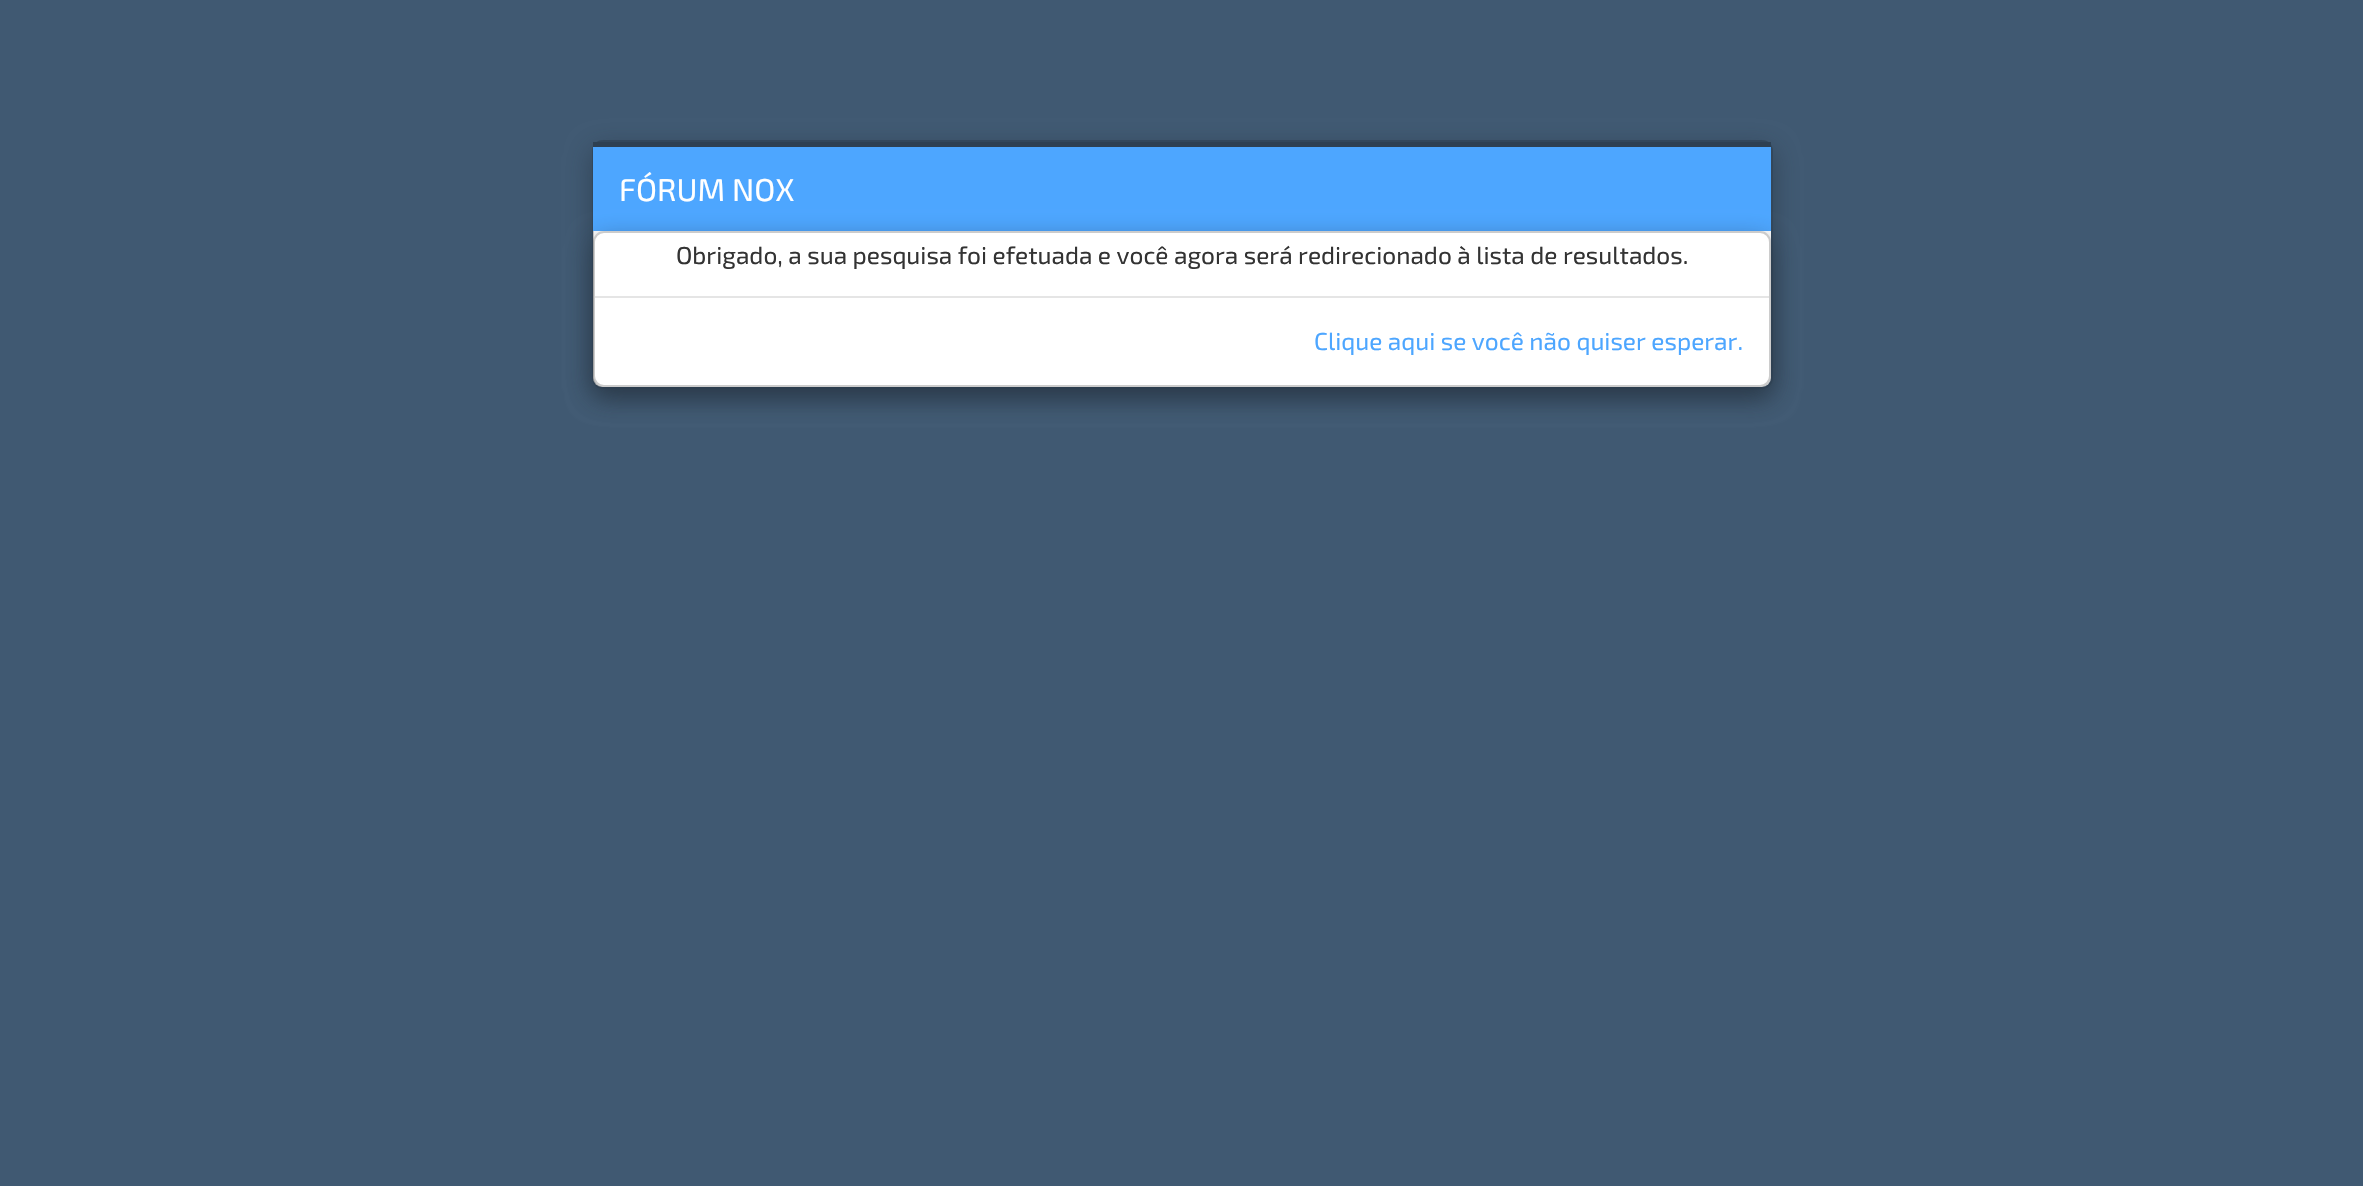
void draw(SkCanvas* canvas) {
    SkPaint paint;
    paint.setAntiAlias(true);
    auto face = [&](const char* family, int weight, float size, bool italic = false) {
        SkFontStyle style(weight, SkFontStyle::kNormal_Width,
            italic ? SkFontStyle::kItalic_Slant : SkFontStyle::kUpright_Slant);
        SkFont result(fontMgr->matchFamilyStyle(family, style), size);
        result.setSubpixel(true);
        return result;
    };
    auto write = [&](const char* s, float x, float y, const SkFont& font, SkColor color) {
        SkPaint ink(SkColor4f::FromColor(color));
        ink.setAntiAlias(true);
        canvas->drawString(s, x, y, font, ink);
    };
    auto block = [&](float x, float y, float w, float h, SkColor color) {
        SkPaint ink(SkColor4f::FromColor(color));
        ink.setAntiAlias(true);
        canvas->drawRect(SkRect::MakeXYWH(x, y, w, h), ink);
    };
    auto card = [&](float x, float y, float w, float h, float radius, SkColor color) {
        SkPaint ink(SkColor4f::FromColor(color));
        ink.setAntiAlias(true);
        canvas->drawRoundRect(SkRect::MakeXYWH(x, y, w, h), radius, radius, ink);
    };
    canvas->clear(SkColorSetRGB(64, 89, 114));
    canvas->save();
    canvas->clipPath(SkPathBuilder(SkPathFillType::kEvenOdd).moveTo(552, 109).lineTo(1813, 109).lineTo(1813, 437).lineTo(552, 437).close().moveTo(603, 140).lineTo(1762, 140).cubicTo(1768, 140, 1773, 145, 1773, 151).lineTo(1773, 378).cubicTo(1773, 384, 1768, 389, 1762, 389).lineTo(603, 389).cubicTo(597, 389, 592, 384, 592, 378).lineTo(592, 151).cubicTo(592, 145, 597, 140, 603, 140).close().detach(), true);
    paint.setColor(SkColorSetARGB(128, 32, 44, 56));
    paint.setMaskFilter(SkMaskFilter::MakeBlur(kNormal_SkBlurStyle, 13));
    canvas->drawRoundRect(SkRect::MakeXYWH(592, 149, 1181, 248), 11, 11, paint);
    paint.setMaskFilter(nullptr);
    canvas->restore();
    card(593, 142, 1178, 245, 9, SK_ColorWHITE);
    paint.setStyle(SkPaint::kStroke_Style);
    paint.setStrokeWidth(2);
    paint.setColor(SkColorSetARGB(51, 0, 0, 0));
    canvas->drawRoundRect(SkRect::MakeXYWH(593, 141, 1179, 247), 10, 10, paint);
    block(593, 147, 1178, 84, SkColorSetRGB(77, 166, 255));
    block(593, 142, 1178, 5, SkColorSetRGB(46, 64, 82));
    auto kFont1 = face("Exo 2", 400, 31.5f);
    write("FÓRUM NOX", 619, 201, kFont1, SK_ColorWHITE);
    canvas->save();
    canvas->clipPath(SkPathBuilder(SkPathFillType::kEvenOdd).moveTo(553, 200).lineTo(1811, 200).lineTo(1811, 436).lineTo(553, 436).close().moveTo(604, 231).lineTo(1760, 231).cubicTo(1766, 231, 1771, 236, 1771, 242).lineTo(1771, 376).cubicTo(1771, 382, 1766, 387, 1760, 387).lineTo(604, 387).cubicTo(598, 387, 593, 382, 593, 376).lineTo(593, 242).cubicTo(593, 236, 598, 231, 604, 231).close().detach(), true);
    paint.setStyle(SkPaint::kFill_Style);
    paint.setColor(SkColorSetARGB(128, 32, 44, 56));
    paint.setMaskFilter(SkMaskFilter::MakeBlur(kNormal_SkBlurStyle, 13));
    canvas->drawRoundRect(SkRect::MakeXYWH(593, 240, 1178, 156), 11, 11, paint);
    paint.setMaskFilter(nullptr);
    canvas->restore();
    paint.setStyle(SkPaint::kStroke_Style);
    paint.setColor(SkColorSetARGB(51, 0, 0, 0));
    canvas->drawRoundRect(SkRect::MakeXYWH(594, 232, 1176, 154), 10, 10, paint);
    auto kFont2 = face("Exo 2", 400, 24.5f);
    write("Obrigado, a sua pesquisa foi efetuada e você agora será redirecionado à lista de resultados.", 676, 264, kFont2, SkColorSetRGB(51, 51, 51));
    block(595, 296, 1174, 2, SkColorSetRGB(229, 229, 229));
    write("Clique aqui se você não quiser esperar.", 1314, 350, kFont2, SkColorSetRGB(77, 166, 255));
}
